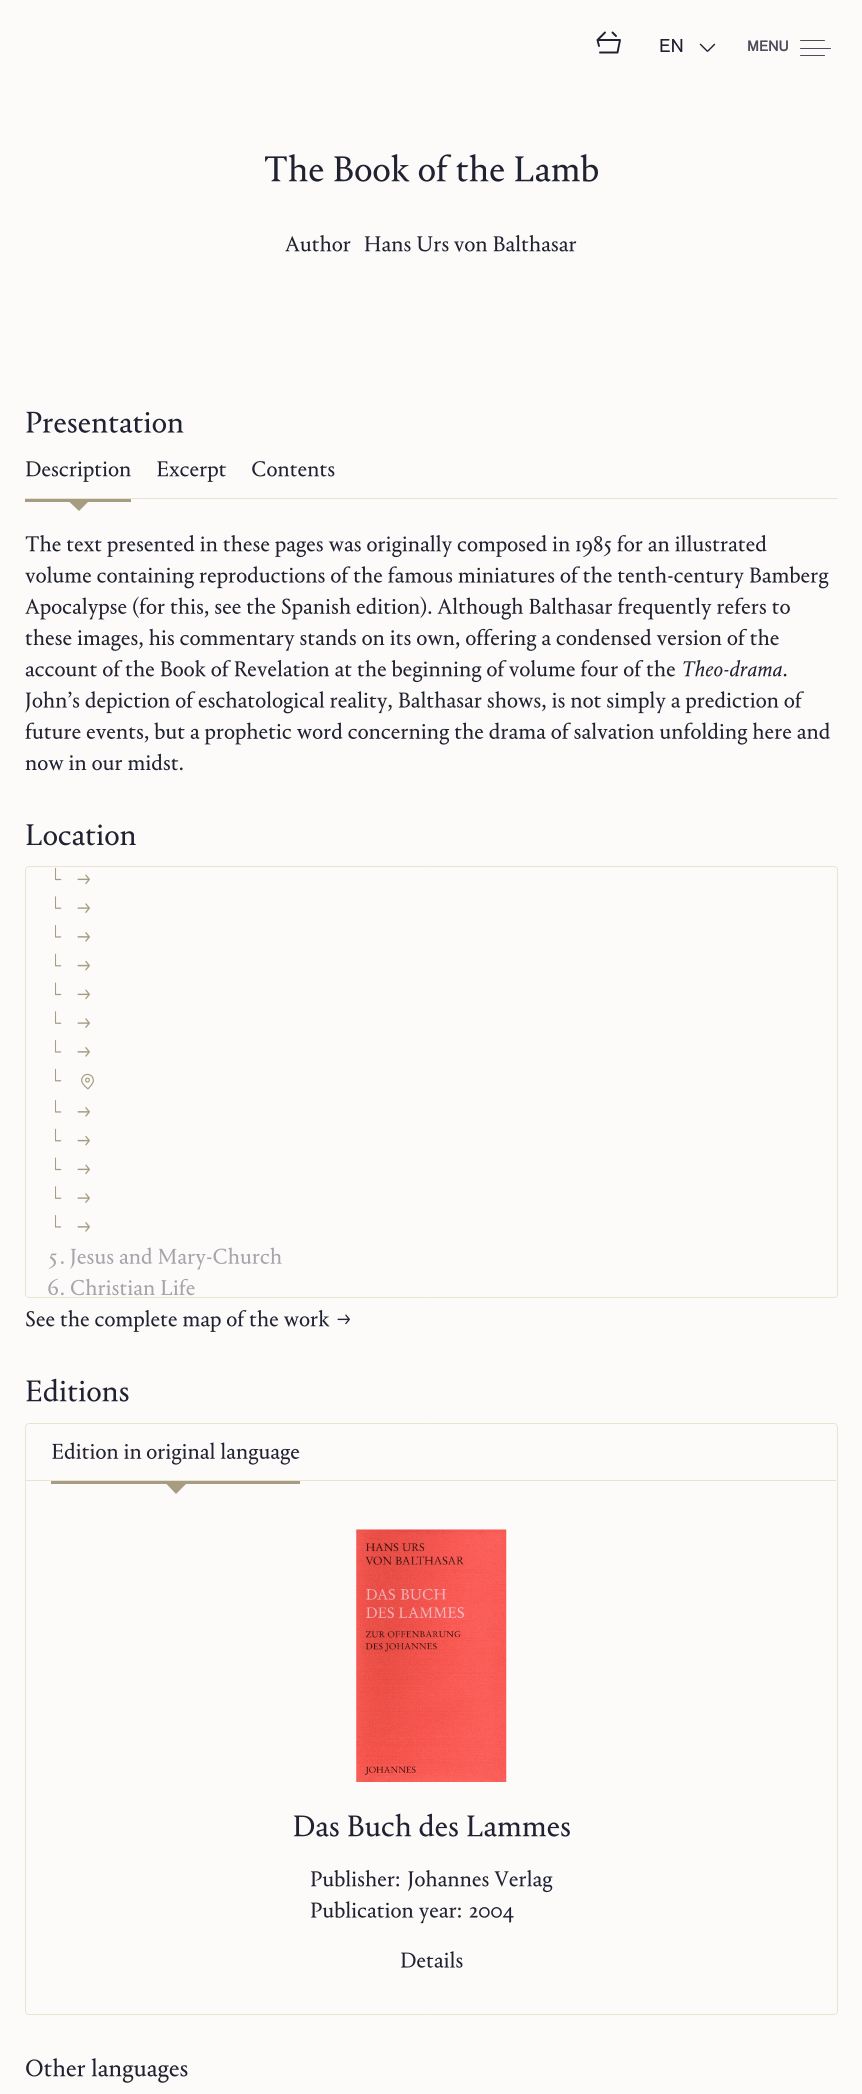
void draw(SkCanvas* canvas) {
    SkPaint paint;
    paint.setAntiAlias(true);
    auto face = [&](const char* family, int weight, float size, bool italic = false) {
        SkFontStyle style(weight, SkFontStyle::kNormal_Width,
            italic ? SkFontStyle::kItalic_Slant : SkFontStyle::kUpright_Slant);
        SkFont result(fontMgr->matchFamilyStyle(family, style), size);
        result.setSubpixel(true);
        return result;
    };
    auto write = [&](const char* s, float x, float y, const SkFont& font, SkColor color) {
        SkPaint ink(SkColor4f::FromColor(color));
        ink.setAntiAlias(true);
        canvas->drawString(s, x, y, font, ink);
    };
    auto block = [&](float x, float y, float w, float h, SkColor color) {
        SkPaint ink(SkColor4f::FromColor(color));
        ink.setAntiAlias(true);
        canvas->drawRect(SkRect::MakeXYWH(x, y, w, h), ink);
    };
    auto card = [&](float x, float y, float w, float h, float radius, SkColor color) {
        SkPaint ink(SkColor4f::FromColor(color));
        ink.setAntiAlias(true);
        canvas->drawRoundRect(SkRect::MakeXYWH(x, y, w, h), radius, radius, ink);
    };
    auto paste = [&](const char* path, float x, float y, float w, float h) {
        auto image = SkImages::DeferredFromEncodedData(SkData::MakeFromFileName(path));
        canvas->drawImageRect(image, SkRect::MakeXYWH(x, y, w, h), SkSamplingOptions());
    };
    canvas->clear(SkColorSetRGB(252, 251, 250));
    paint.setStyle(SkPaint::kStroke_Style);
    paint.setStrokeWidth(1.9f);
    paint.setStrokeCap(SkPaint::kRound_Cap);
    paint.setStrokeJoin(SkPaint::kRound_Join);
    paint.setColor(SkColorSetRGB(32, 33, 49));
    canvas->drawPath(SkPathBuilder().moveTo(597.5f, 40).lineTo(620, 40).lineTo(617.5f, 52.5f).lineTo(600, 52.5f).moveTo(597.5f, 40).lineTo(599, 46).moveTo(597.5f, 40).lineTo(605, 32.5f).moveTo(616, 36).lineTo(612.5f, 32.5f).detach(), paint);
    auto kFont1 = face("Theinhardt", 400, 19);
    write("EN", 659, 52, kFont1, SkColorSetRGB(32, 33, 49));
    paste("pic1.png", 699, 43, 17, 9);
    auto kFont2 = face("Theinhardt", 700, 15);
    write("MENU", 747, 51, kFont2, SkColorSetRGB(76, 77, 89));
    card(800, 40, 25, 1, 0.5f, SkColorSetRGB(76, 77, 89));
    card(800, 48, 31, 1, 0.5f, SkColorSetRGB(76, 77, 89));
    card(800, 55, 25, 1, 0.5f, SkColorSetRGB(76, 77, 89));
    paste("pic2.png", 265, 154, 333, 28);
    paste("pic3.png", 285, 235, 66, 17);
    paste("pic4.png", 364, 236, 85, 16);
    paste("pic5.png", 453, 235, 124, 17);
    paste("pic6.png", 26, 411, 158, 22);
    paste("pic7.png", 26, 461, 105, 21);
    block(25, 499, 106, 3, SkColorSetRGB(165, 156, 130));
    paint.setStyle(SkPaint::kFill_Style);
    paint.setColor(SkColorSetRGB(165, 156, 130));
    canvas->drawPath(SkPathBuilder().moveTo(69, 501.5f).lineTo(69, 501).lineTo(88, 501.5f).lineTo(88, 502).lineTo(79, 511).close().detach(), paint);
    paste("pic8.png", 157, 461, 70, 21);
    paste("pic9.png", 252, 461, 83, 16);
    block(25, 498, 813, 1, SkColorSetRGB(233, 227, 210));
    paste("pic10.png", 25, 535, 742, 23);
    paste("pic11.png", 25, 566, 804, 23);
    paste("pic12.png", 25, 596, 765, 24);
    paste("pic13.png", 25, 628, 754, 23);
    paste("pic14.png", 25, 660, 482, 23);
    paste("pic15.png", 508, 660, 168, 17);
    paste("pic16.png", 683, 660, 99, 17);
    paste("pic17.png", 783, 673, 4, 4);
    paste("pic18.png", 25, 691, 779, 23);
    paste("pic19.png", 25, 722, 806, 23);
    paste("pic20.png", 25, 753, 158, 18);
    paste("pic21.png", 26, 824, 111, 22);
    paint.setStyle(SkPaint::kStroke_Style);
    paint.setStrokeWidth(1);
    paint.setStrokeCap(SkPaint::kButt_Cap);
    paint.setStrokeJoin(SkPaint::kMiter_Join);
    paint.setColor(SkColorSetRGB(233, 227, 210));
    canvas->drawRoundRect(SkRect::MakeXYWH(25.5f, 866.5f, 812, 431), 3.5f, 3.5f, paint);
    paste("pic22.png", 55, 868, 7, 13);
    paste("pic23.png", 77, 874, 13, 11);
    paste("pic24.png", 55, 896, 7, 13);
    paste("pic25.png", 77, 903, 13, 10);
    paste("pic26.png", 55, 925, 7, 13);
    paste("pic27.png", 77, 932, 13, 10);
    paste("pic28.png", 55, 953, 7, 14);
    paste("pic29.png", 77, 960, 13, 11);
    paste("pic30.png", 55, 982, 7, 14);
    paste("pic23.png", 77, 989, 13, 11);
    paste("pic24.png", 55, 1011, 7, 13);
    paste("pic25.png", 77, 1018, 13, 10);
    paste("pic26.png", 55, 1040, 7, 13);
    paste("pic27.png", 77, 1047, 13, 10);
    paste("pic28.png", 55, 1068, 7, 14);
    paste("pic31.png", 81, 1073, 13, 17);
    paste("pic26.png", 55, 1100, 7, 13);
    paste("pic27.png", 77, 1107, 13, 10);
    paste("pic28.png", 55, 1128, 7, 14);
    paste("pic29.png", 77, 1135, 13, 11);
    paste("pic30.png", 55, 1157, 7, 14);
    paste("pic23.png", 77, 1164, 13, 11);
    paste("pic24.png", 55, 1186, 7, 13);
    paste("pic25.png", 77, 1193, 13, 10);
    paste("pic26.png", 55, 1215, 7, 13);
    paste("pic27.png", 77, 1222, 13, 10);
    paste("pic32.png", 48, 1253, 16, 16);
    paste("pic33.png", 70, 1247, 212, 23);
    paste("pic34.png", 48, 1278, 16, 18);
    paste("pic35.png", 71, 1278, 124, 18);
    paste("pic36.png", 26, 1310, 304, 22);
    paste("pic37.png", 337, 1314, 13, 11);
    paste("pic38.png", 26, 1378, 103, 24);
    canvas->drawRoundRect(SkRect::MakeXYWH(25.5f, 1423.5f, 812, 591), 3.5f, 3.5f, paint);
    paste("pic39.png", 52, 1442, 90, 17);
    paste("pic40.png", 146, 1442, 154, 23);
    block(51, 1481, 249, 3, SkColorSetRGB(165, 156, 130));
    paint.setStyle(SkPaint::kFill_Style);
    paint.setColor(SkColorSetRGB(165, 156, 130));
    canvas->drawPath(SkPathBuilder().moveTo(167.5f, 1484).lineTo(185.5f, 1484).lineTo(186, 1484).lineTo(176, 1494).lineTo(166.5f, 1484).close().detach(), paint);
    block(26, 1480, 810, 1, SkColorSetRGB(233, 227, 210));
    paste("pic41.png", 356, 1529, 151, 253);
    paste("pic42.png", 293, 1813, 277, 24);
    paste("pic43.png", 311, 1870, 88, 17);
    paste("pic44.png", 407, 1870, 146, 23);
    paste("pic45.png", 311, 1901, 150, 23);
    paste("pic46.png", 469, 1907, 45, 16);
    paste("pic47.png", 401, 1951, 62, 17);
    paste("pic48.png", 26, 2058, 162, 25);
}
